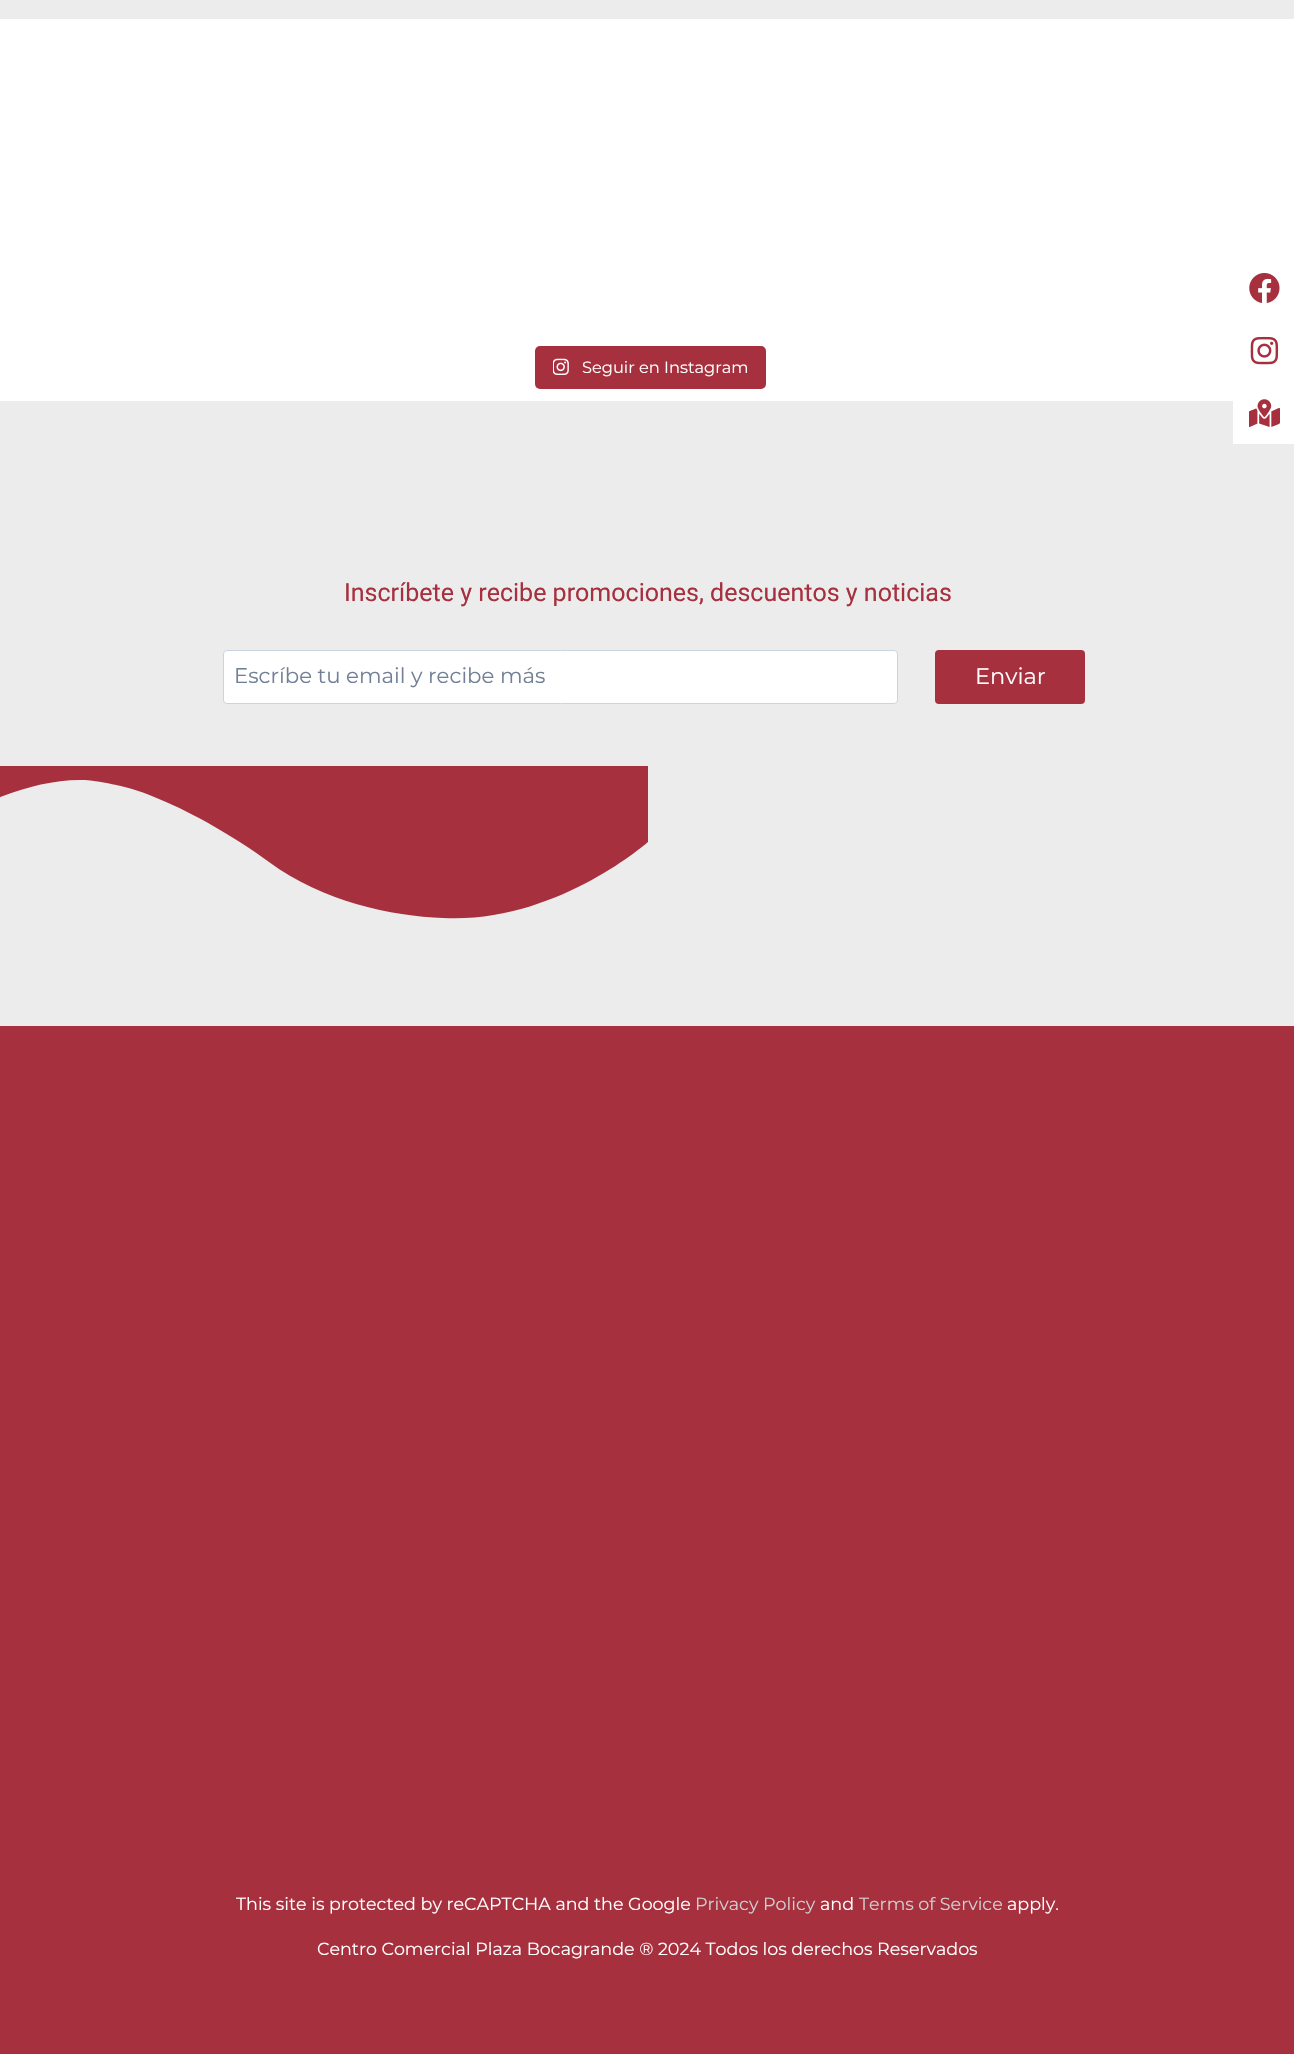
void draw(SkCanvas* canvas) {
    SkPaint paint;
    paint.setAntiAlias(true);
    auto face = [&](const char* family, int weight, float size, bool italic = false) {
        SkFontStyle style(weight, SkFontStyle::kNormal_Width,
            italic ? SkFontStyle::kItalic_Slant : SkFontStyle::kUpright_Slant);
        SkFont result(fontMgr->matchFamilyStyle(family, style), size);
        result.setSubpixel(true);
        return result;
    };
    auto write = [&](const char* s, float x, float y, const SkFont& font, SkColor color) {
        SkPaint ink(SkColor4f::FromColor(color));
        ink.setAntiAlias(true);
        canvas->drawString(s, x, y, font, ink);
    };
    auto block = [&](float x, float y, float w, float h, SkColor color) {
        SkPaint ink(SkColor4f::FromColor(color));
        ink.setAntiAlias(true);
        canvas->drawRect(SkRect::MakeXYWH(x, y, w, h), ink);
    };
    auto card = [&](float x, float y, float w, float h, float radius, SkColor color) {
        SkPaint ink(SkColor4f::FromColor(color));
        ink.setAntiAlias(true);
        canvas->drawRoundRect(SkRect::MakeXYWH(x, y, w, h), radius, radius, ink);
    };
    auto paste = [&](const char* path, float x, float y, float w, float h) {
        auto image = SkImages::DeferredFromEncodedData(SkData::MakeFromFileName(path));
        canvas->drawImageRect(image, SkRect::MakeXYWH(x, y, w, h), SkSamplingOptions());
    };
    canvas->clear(SK_ColorWHITE);
    block(0, 0, 1294, 19, SkColorSetRGB(236, 236, 236));
    card(535, 346, 231, 43, 5, SkColorSetRGB(166, 48, 62));
    paste("pic1.png", 553, 358, 16, 17);
    auto kFont1 = face("Montserrat", 400, 16.25f);
    write("Seguir en Instagram", 582, 373, kFont1, SK_ColorWHITE);
    paste("pic2.png", 1249, 273, 31, 30);
    paste("pic3.png", 1250, 336, 29, 29);
    block(0, 401, 1294, 625, SkColorSetRGB(236, 236, 236));
    block(1233, 401, 61, 43, SK_ColorWHITE);
    paste("pic4.png", 1249, 399, 31, 28);
    auto kFont2 = face("Roboto", 400, 25);
    write("Inscríbete y recibe promociones, descuentos y noticias", 344, 601, kFont2, SkColorSetRGB(166, 48, 62));
    paint.setColor(SK_ColorWHITE);
    canvas->drawRoundRect(SkRect::MakeXYWH(223.5f, 650.5f, 674, 53), 3.5f, 3.5f, paint);
    paint.setStyle(SkPaint::kStroke_Style);
    paint.setStrokeWidth(1);
    paint.setColor(SkColorSetRGB(203, 213, 224));
    canvas->drawRoundRect(SkRect::MakeXYWH(223.5f, 650.5f, 674, 53), 3.5f, 3.5f, paint);
    auto kFont3 = face("Montserrat", 400, 21.25f);
    write("Escríbe tu email y recibe más", 234, 683, kFont3, SkColorSetRGB(113, 128, 150));
    card(935, 650, 150, 54, 4, SkColorSetRGB(166, 48, 62));
    auto kFont4 = face("Montserrat", 400, 22.5f);
    write("Enviar", 975, 684, kFont4, SK_ColorWHITE);
    paint.setStyle(SkPaint::kFill_Style);
    paint.setColor(SkColorSetRGB(166, 48, 62));
    canvas->drawPath(SkPathBuilder().moveTo(101, 782).cubicTo(72, 776, 34, 784, 3, 796).cubicTo(-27, 808, -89, 854, -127, 885).cubicTo(-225, 966, -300, 996, -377, 1009).cubicTo(-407, 1014, -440, 1018, -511, 1003).cubicTo(-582, 988, -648, 939, -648, 939).lineTo(-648, 766).lineTo(648, 766).lineTo(648, 842).cubicTo(648, 842, 555, 924, 443, 918).cubicTo(392, 916, 323, 902, 269, 862).cubicTo(242, 842, 201, 817, 166, 802).cubicTo(131, 786, 115, 785, 101, 782).close().detach(), paint);
    block(0, 1026, 1294, 1028, SkColorSetRGB(166, 48, 62));
    auto kFont5 = face("Montserrat", 400, 17.5f);
    write("This site is protected by reCAPTCHA and the Google", 236, 1910, kFont5, SK_ColorWHITE);
    write("Privacy Policy", 695, 1910, kFont5, SkColorSetRGB(207, 207, 207));
    write("and", 820, 1910, kFont5, SK_ColorWHITE);
    write("Terms of Service", 859, 1910, kFont5, SkColorSetRGB(207, 207, 207));
    write("apply.", 1007, 1910, kFont5, SK_ColorWHITE);
    write("Centro Comercial Plaza Bocagrande ® 2024 Todos los derechos Reservados", 317, 1955, kFont5, SK_ColorWHITE);
}
